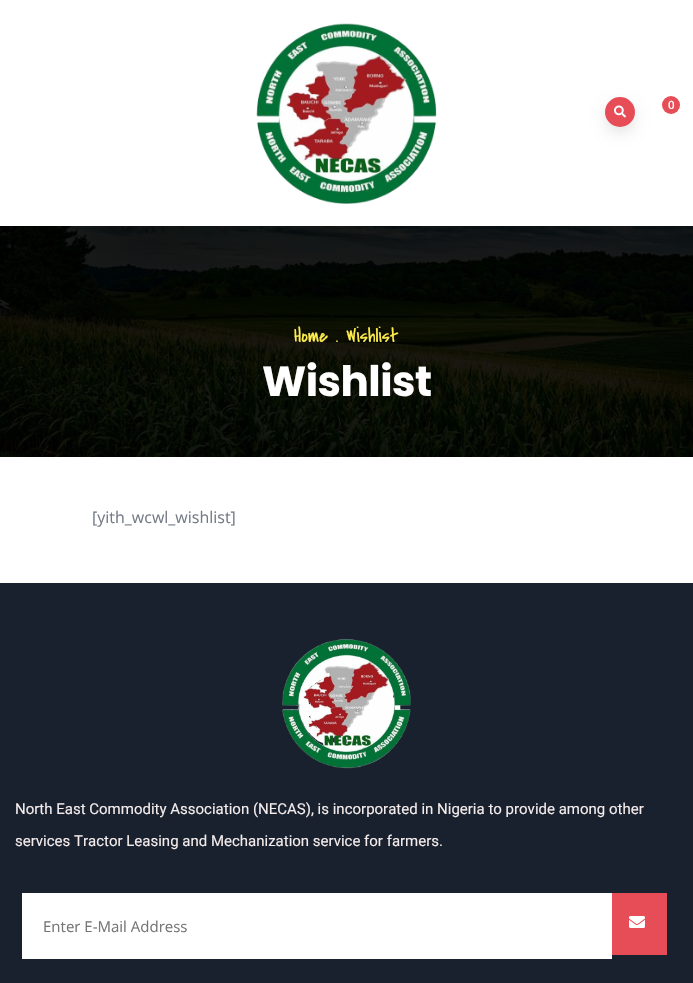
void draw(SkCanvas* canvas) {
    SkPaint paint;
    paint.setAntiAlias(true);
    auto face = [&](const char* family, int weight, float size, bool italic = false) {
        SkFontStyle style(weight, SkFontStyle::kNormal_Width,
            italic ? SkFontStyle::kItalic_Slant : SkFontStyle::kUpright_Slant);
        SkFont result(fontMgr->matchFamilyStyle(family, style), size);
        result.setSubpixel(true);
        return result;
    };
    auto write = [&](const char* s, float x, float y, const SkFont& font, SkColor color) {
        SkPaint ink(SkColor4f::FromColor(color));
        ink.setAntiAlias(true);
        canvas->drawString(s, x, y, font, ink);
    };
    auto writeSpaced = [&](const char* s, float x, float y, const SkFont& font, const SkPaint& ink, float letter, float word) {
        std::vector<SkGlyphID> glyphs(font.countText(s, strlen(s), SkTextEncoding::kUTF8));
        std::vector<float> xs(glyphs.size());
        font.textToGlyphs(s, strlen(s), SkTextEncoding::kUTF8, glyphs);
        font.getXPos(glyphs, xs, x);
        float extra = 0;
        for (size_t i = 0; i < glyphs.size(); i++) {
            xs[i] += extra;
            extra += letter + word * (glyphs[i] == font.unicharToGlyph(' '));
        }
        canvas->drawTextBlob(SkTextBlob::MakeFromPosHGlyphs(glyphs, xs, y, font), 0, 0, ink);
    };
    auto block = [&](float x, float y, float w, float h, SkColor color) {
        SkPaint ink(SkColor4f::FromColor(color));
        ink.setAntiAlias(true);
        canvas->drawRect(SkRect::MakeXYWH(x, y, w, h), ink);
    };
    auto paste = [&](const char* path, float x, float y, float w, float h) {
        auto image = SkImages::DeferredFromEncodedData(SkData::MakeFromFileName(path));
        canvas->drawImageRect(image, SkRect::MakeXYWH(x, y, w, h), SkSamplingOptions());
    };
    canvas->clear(SK_ColorWHITE);
    paste("pic1.png", 256, 23, 181, 181);
    paint.setColor(SkColorSetARGB(26, 0, 0, 0));
    paint.setMaskFilter(SkMaskFilter::MakeBlur(kNormal_SkBlurStyle, 7));
    canvas->drawRoundRect(SkRect::MakeXYWH(605, 103, 30, 30), 15, 15, paint);
    paint.setMaskFilter(nullptr);
    paint.setColor(SkColorSetRGB(231, 77, 87));
    canvas->drawCircle(620, 112, 15, paint);
    paste("pic2.png", 614, 105, 12, 13);
    canvas->drawCircle(671, 105, 9, paint);
    auto kFont1 = face("Open Sans", 700, 11);
    write("0", 668, 109, kFont1, SK_ColorWHITE);
    paste("pic3.png", 0, 226, 693, 231);
    auto kFont2 = face("Covered By Your Grace", 400, 20);
    write("Home . Wishlist", 294, 342, kFont2, SkColorSetRGB(255, 236, 78));
    auto kFont3 = face("Poppins", 700, 42);
    paint.setColor(SK_ColorWHITE);
    writeSpaced("Wishlist", 262, 396, kFont3, paint, -0.5f, 0);
    auto kFont4 = face("Open Sans", 400, 16);
    write("[yith_wcwl_wishlist]", 92, 523, kFont4, SkColorSetRGB(116, 123, 134));
    block(0, 583, 693, 400, SkColorSetRGB(25, 33, 46));
    paste("pic4.png", 282, 639, 129, 130);
    auto kFont5 = face("Roboto", 400, 15);
    write("North East Commodity Association (NECAS), is incorporated in Nigeria to provide among other", 15, 814, kFont5, SkColorSetRGB(244, 236, 236));
    write("services Tractor Leasing and Mechanization service for farmers.", 15, 846, kFont5, SkColorSetRGB(244, 236, 236));
    block(22, 893, 590, 66, SK_ColorWHITE);
    auto kFont6 = face("Open Sans", 400, 15);
    write("Enter E-Mail Address", 43, 932, kFont6, SkColorSetRGB(117, 117, 117));
    block(612, 893, 55, 62, SkColorSetRGB(231, 77, 87));
    paste("pic5.png", 629, 916, 16, 12);
}
